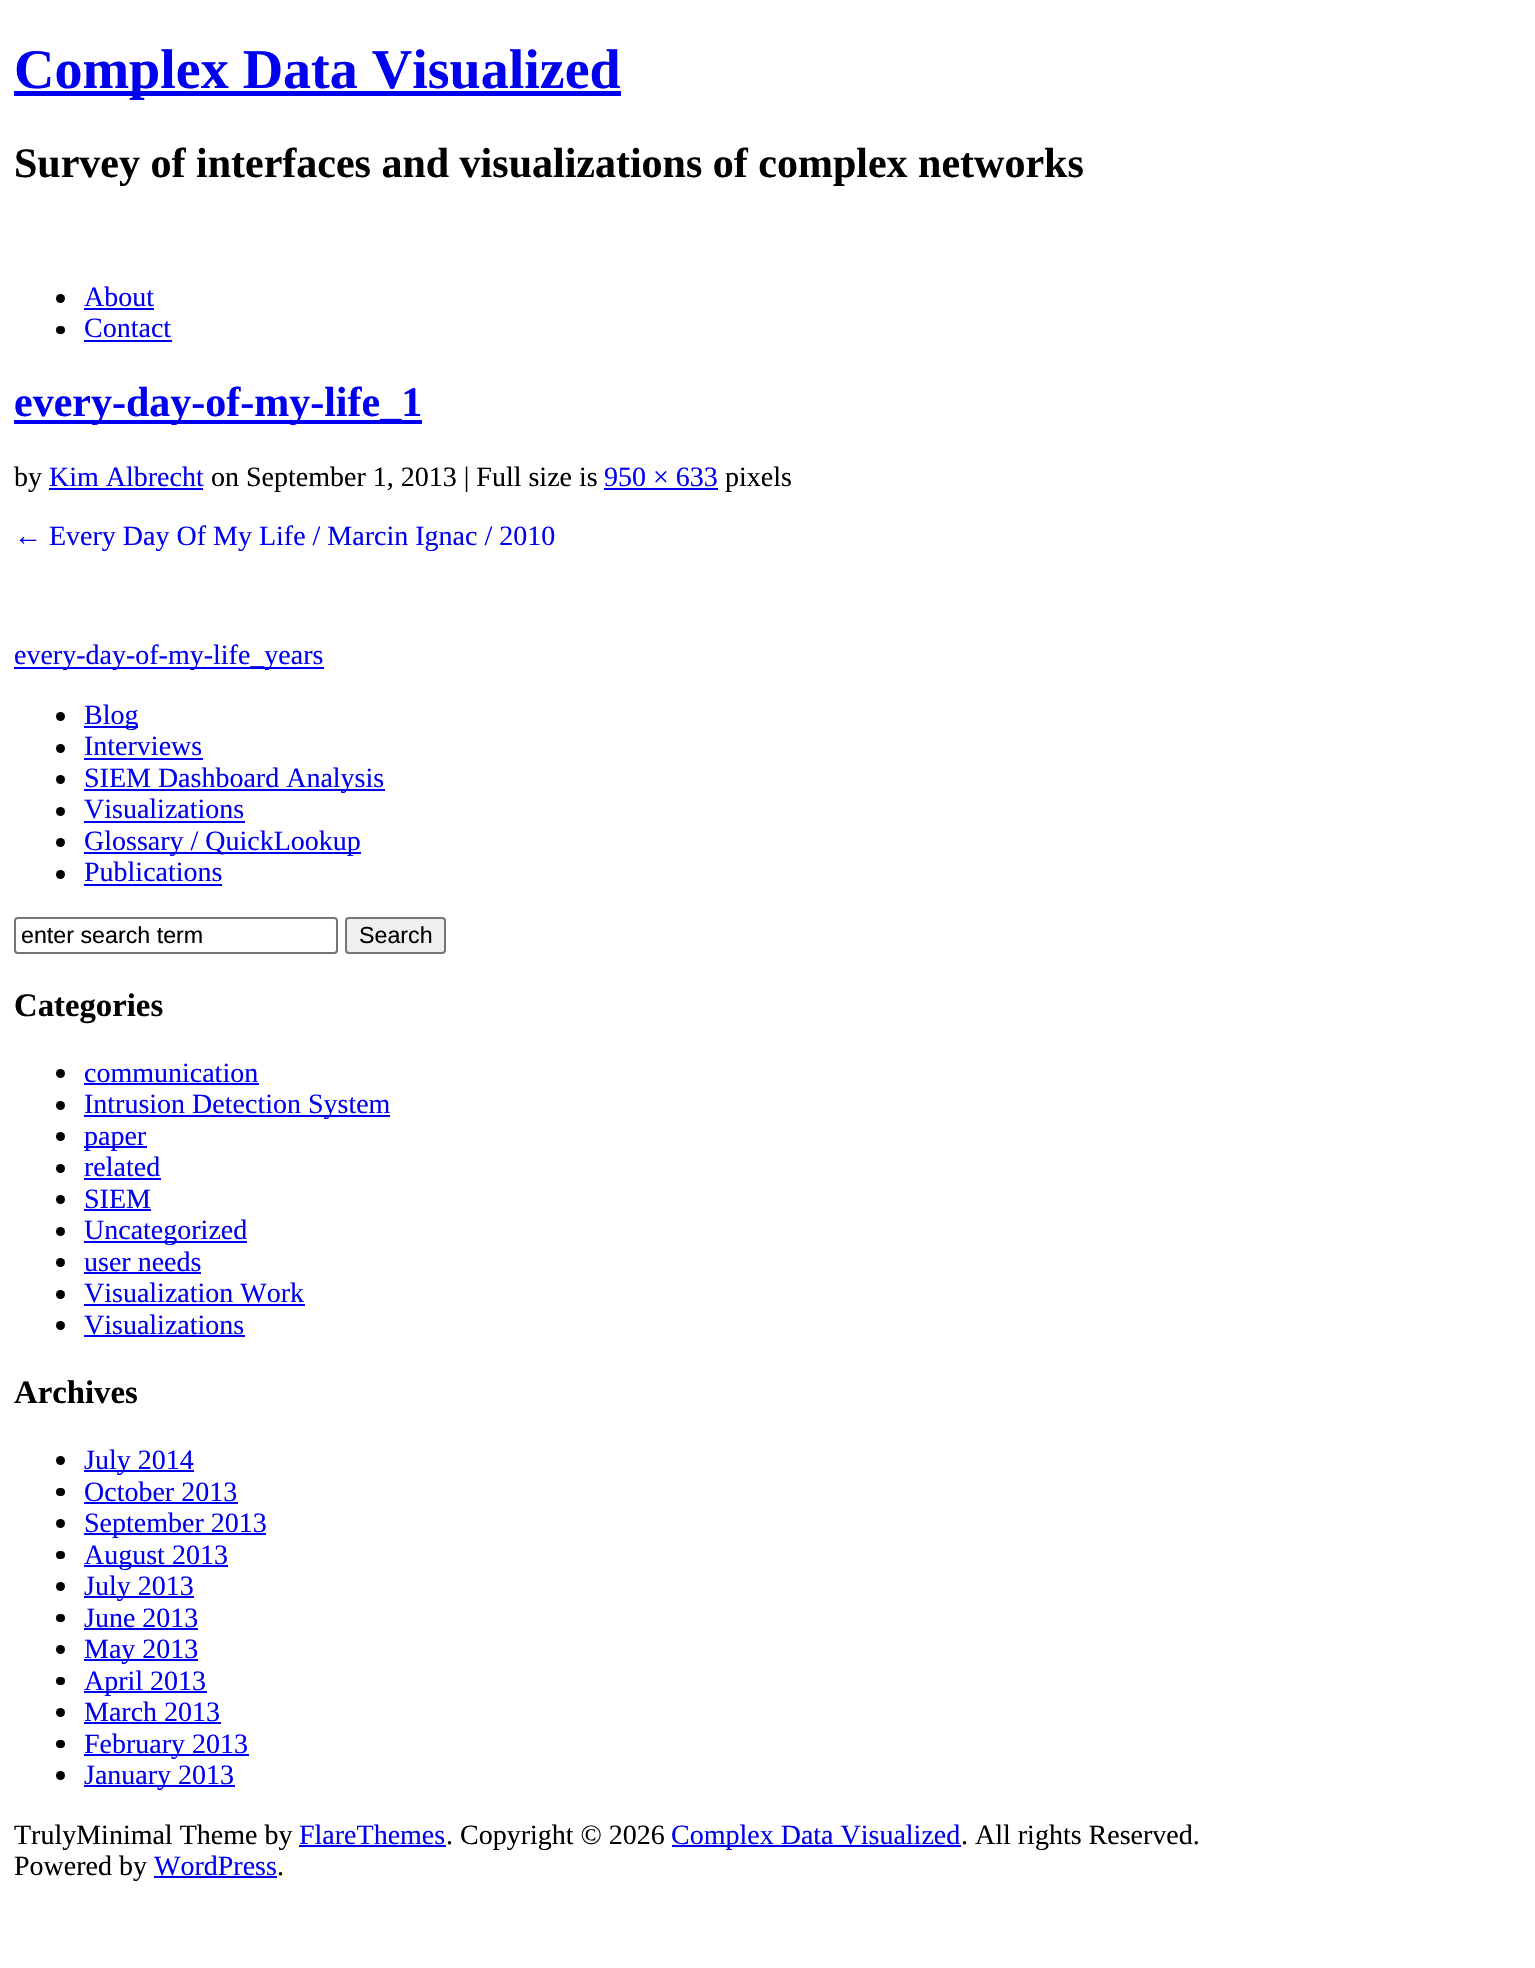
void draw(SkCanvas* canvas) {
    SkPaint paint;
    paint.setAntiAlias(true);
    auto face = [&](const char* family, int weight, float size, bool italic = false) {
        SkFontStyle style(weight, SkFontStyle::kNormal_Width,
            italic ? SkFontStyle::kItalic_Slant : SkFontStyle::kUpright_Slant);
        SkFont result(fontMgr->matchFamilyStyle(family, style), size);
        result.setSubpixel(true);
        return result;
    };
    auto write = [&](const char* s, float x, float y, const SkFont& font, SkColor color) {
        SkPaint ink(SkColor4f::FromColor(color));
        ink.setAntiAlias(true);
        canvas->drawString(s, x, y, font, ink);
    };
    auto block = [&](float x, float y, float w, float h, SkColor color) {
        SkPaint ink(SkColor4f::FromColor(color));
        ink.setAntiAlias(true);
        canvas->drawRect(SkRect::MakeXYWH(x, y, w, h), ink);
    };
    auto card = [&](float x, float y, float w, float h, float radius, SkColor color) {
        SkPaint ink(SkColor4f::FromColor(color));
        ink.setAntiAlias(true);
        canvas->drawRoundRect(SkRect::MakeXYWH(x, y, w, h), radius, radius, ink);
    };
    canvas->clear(SK_ColorWHITE);
    block(14, 91, 607, 5, SkColorSetRGB(0, 0, 238));
    auto kFont1 = face("Liberation Serif", 700, 56);
    write("Complex Data Visualized", 14, 88, kFont1, SkColorSetRGB(0, 0, 238));
    auto kFont2 = face("Liberation Serif", 700, 42);
    write("Survey of interfaces and visualizations of complex networks", 14, 177, kFont2, SK_ColorBLACK);
    paint.setColor(SK_ColorBLACK);
    canvas->drawCircle(60.5f, 298.5f, 4.5f, paint);
    auto kFont3 = face("Liberation Serif", 400, 28);
    write("About", 84, 306, kFont3, SkColorSetRGB(0, 0, 238));
    block(84, 308, 70, 2, SkColorSetRGB(0, 0, 238));
    card(56, 326, 9, 8, 4, SK_ColorBLACK);
    write("Contact", 84, 337, kFont3, SkColorSetRGB(0, 0, 238));
    block(84, 340, 88, 2, SkColorSetRGB(0, 0, 238));
    block(14, 420, 408, 4, SkColorSetRGB(0, 0, 238));
    write("every-day-of-my-life_1", 14, 416, kFont2, SkColorSetRGB(0, 0, 238));
    write("by", 14, 486, kFont3, SK_ColorBLACK);
    write("Kim Albrecht", 49, 486, kFont3, SkColorSetRGB(0, 0, 238));
    block(49, 488, 154, 2, SkColorSetRGB(0, 0, 238));
    write("on September 1, 2013 | Full size is", 211, 486, kFont3, SK_ColorBLACK);
    write("950 × 633", 604, 486, kFont3, SkColorSetRGB(0, 0, 238));
    block(604, 488, 114, 2, SkColorSetRGB(0, 0, 238));
    write("pixels", 725, 486, kFont3, SK_ColorBLACK);
    write("← Every Day Of My Life / Marcin Ignac / 2010", 14, 545, kFont3, SkColorSetRGB(0, 0, 238));
    block(14, 667, 310, 2, SkColorSetRGB(0, 0, 238));
    write("every-day-of-my-life_years", 14, 664, kFont3, SkColorSetRGB(0, 0, 238));
    canvas->drawCircle(60.5f, 716.5f, 4.5f, paint);
    block(84, 726, 54, 2, SkColorSetRGB(0, 0, 238));
    write("Blog", 84, 724, kFont3, SkColorSetRGB(0, 0, 238));
    canvas->drawCircle(60.5f, 748.5f, 4.5f, paint);
    write("Interviews", 84, 755, kFont3, SkColorSetRGB(0, 0, 238));
    block(84, 758, 119, 2, SkColorSetRGB(0, 0, 238));
    canvas->drawCircle(60.5f, 779.5f, 4.5f, paint);
    block(84, 789, 301, 2, SkColorSetRGB(0, 0, 238));
    write("SIEM Dashboard Analysis", 84, 787, kFont3, SkColorSetRGB(0, 0, 238));
    canvas->drawCircle(60.5f, 811.5f, 4.5f, paint);
    write("Visualizations", 84, 818, kFont3, SkColorSetRGB(0, 0, 238));
    block(84, 821, 161, 2, SkColorSetRGB(0, 0, 238));
    canvas->drawCircle(60.5f, 842.5f, 4.5f, paint);
    block(84, 852, 277, 2, SkColorSetRGB(0, 0, 238));
    write("Glossary / QuickLookup", 84, 850, kFont3, SkColorSetRGB(0, 0, 238));
    canvas->drawCircle(60.5f, 874.5f, 4.5f, paint);
    write("Publications", 84, 881, kFont3, SkColorSetRGB(0, 0, 238));
    block(84, 884, 138, 2, SkColorSetRGB(0, 0, 238));
    paint.setStyle(SkPaint::kStroke_Style);
    paint.setStrokeWidth(2);
    paint.setColor(SkColorSetRGB(118, 118, 118));
    canvas->drawRoundRect(SkRect::MakeXYWH(15, 918, 322, 35), 3, 3, paint);
    auto kFont4 = face("Liberation Sans", 400, 23.25f);
    write("enter search term", 21, 943, kFont4, SK_ColorBLACK);
    paint.setStyle(SkPaint::kFill_Style);
    paint.setColor(SkColorSetRGB(239, 239, 239));
    canvas->drawRoundRect(SkRect::MakeXYWH(346, 918, 99, 35), 3, 3, paint);
    paint.setStyle(SkPaint::kStroke_Style);
    paint.setColor(SkColorSetRGB(118, 118, 118));
    canvas->drawRoundRect(SkRect::MakeXYWH(346, 918, 99, 35), 3, 3, paint);
    write("Search", 359, 943, kFont4, SK_ColorBLACK);
    auto kFont5 = face("Liberation Serif", 700, 32.75f);
    write("Categories", 14, 1016, kFont5, SK_ColorBLACK);
    paint.setStyle(SkPaint::kFill_Style);
    paint.setColor(SK_ColorBLACK);
    canvas->drawCircle(60.5f, 1073.5f, 4.5f, paint);
    write("communication", 84, 1082, kFont3, SkColorSetRGB(0, 0, 238));
    block(84, 1083, 175, 2, SkColorSetRGB(0, 0, 238));
    canvas->drawCircle(60.5f, 1105.5f, 4.5f, paint);
    block(84, 1115, 306, 2, SkColorSetRGB(0, 0, 238));
    write("Intrusion Detection System", 84, 1113, kFont3, SkColorSetRGB(0, 0, 238));
    canvas->drawCircle(60.5f, 1136.5f, 4.5f, paint);
    block(84, 1146, 63, 2, SkColorSetRGB(0, 0, 238));
    write("paper", 84, 1145, kFont3, SkColorSetRGB(0, 0, 238));
    canvas->drawCircle(60.5f, 1168.5f, 4.5f, paint);
    write("related", 84, 1176, kFont3, SkColorSetRGB(0, 0, 238));
    block(84, 1178, 77, 2, SkColorSetRGB(0, 0, 238));
    canvas->drawCircle(60.5f, 1199.5f, 4.5f, paint);
    write("SIEM", 84, 1208, kFont3, SkColorSetRGB(0, 0, 238));
    block(84, 1209, 67, 2, SkColorSetRGB(0, 0, 238));
    canvas->drawCircle(60.5f, 1231.5f, 4.5f, paint);
    block(84, 1241, 163, 2, SkColorSetRGB(0, 0, 238));
    write("Uncategorized", 84, 1239, kFont3, SkColorSetRGB(0, 0, 238));
    canvas->drawCircle(60.5f, 1262.5f, 4.5f, paint);
    write("user needs", 84, 1271, kFont3, SkColorSetRGB(0, 0, 238));
    block(84, 1272, 117, 2, SkColorSetRGB(0, 0, 238));
    canvas->drawCircle(60.5f, 1294.5f, 4.5f, paint);
    write("Visualization Work", 84, 1302, kFont3, SkColorSetRGB(0, 0, 238));
    block(84, 1304, 221, 2, SkColorSetRGB(0, 0, 238));
    canvas->drawCircle(60.5f, 1325.5f, 4.5f, paint);
    write("Visualizations", 84, 1334, kFont3, SkColorSetRGB(0, 0, 238));
    block(84, 1335, 161, 2, SkColorSetRGB(0, 0, 238));
    write("Archives", 14, 1403, kFont5, SK_ColorBLACK);
    canvas->drawCircle(60.5f, 1460.5f, 4.5f, paint);
    block(84, 1470, 110, 2, SkColorSetRGB(0, 0, 238));
    write("July 2014", 84, 1469, kFont3, SkColorSetRGB(0, 0, 238));
    card(56, 1488, 9, 8, 4, SK_ColorBLACK);
    write("October 2013", 84, 1501, kFont3, SkColorSetRGB(0, 0, 238));
    block(84, 1502, 154, 2, SkColorSetRGB(0, 0, 238));
    canvas->drawCircle(60.5f, 1523.5f, 4.5f, paint);
    block(84, 1533, 182, 2, SkColorSetRGB(0, 0, 238));
    write("September 2013", 84, 1532, kFont3, SkColorSetRGB(0, 0, 238));
    card(56, 1551, 9, 8, 4, SK_ColorBLACK);
    block(84, 1565, 144, 2, SkColorSetRGB(0, 0, 238));
    write("August 2013", 84, 1564, kFont3, SkColorSetRGB(0, 0, 238));
    canvas->drawCircle(60.5f, 1586.5f, 4.5f, paint);
    block(84, 1596, 110, 2, SkColorSetRGB(0, 0, 238));
    write("July 2013", 84, 1595, kFont3, SkColorSetRGB(0, 0, 238));
    card(56, 1614, 9, 8, 4, SK_ColorBLACK);
    write("June 2013", 84, 1627, kFont3, SkColorSetRGB(0, 0, 238));
    block(84, 1628, 114, 2, SkColorSetRGB(0, 0, 238));
    canvas->drawCircle(60.5f, 1649.5f, 4.5f, paint);
    block(84, 1659, 114, 2, SkColorSetRGB(0, 0, 238));
    write("May 2013", 84, 1658, kFont3, SkColorSetRGB(0, 0, 238));
    card(56, 1677, 9, 8, 4, SK_ColorBLACK);
    block(84, 1691, 123, 2, SkColorSetRGB(0, 0, 238));
    write("April 2013", 84, 1690, kFont3, SkColorSetRGB(0, 0, 238));
    canvas->drawCircle(60.5f, 1712.5f, 4.5f, paint);
    write("March 2013", 84, 1721, kFont3, SkColorSetRGB(0, 0, 238));
    block(84, 1722, 137, 2, SkColorSetRGB(0, 0, 238));
    card(56, 1740, 9, 8, 4, SK_ColorBLACK);
    block(84, 1754, 165, 2, SkColorSetRGB(0, 0, 238));
    write("February 2013", 84, 1753, kFont3, SkColorSetRGB(0, 0, 238));
    canvas->drawCircle(60.5f, 1775.5f, 4.5f, paint);
    block(84, 1785, 151, 2, SkColorSetRGB(0, 0, 238));
    write("January 2013", 84, 1784, kFont3, SkColorSetRGB(0, 0, 238));
    write("TrulyMinimal Theme by", 14, 1844, kFont3, SK_ColorBLACK);
    write("FlareThemes", 299, 1844, kFont3, SkColorSetRGB(0, 0, 238));
    write(". Copyright © 2026", 446, 1844, kFont3, SK_ColorBLACK);
    block(299, 1845, 147, 2, SkColorSetRGB(0, 0, 238));
    block(672, 1845, 289, 2, SkColorSetRGB(0, 0, 238));
    write("Complex Data Visualized", 671, 1844, kFont3, SkColorSetRGB(0, 0, 238));
    write(". All rights Reserved.", 961, 1844, kFont3, SK_ColorBLACK);
    write("Powered by", 14, 1875, kFont3, SK_ColorBLACK);
    write("WordPress", 154, 1875, kFont3, SkColorSetRGB(0, 0, 238));
    block(154, 1876, 123, 2, SkColorSetRGB(0, 0, 238));
    write(".", 277, 1875, kFont3, SK_ColorBLACK);
}
